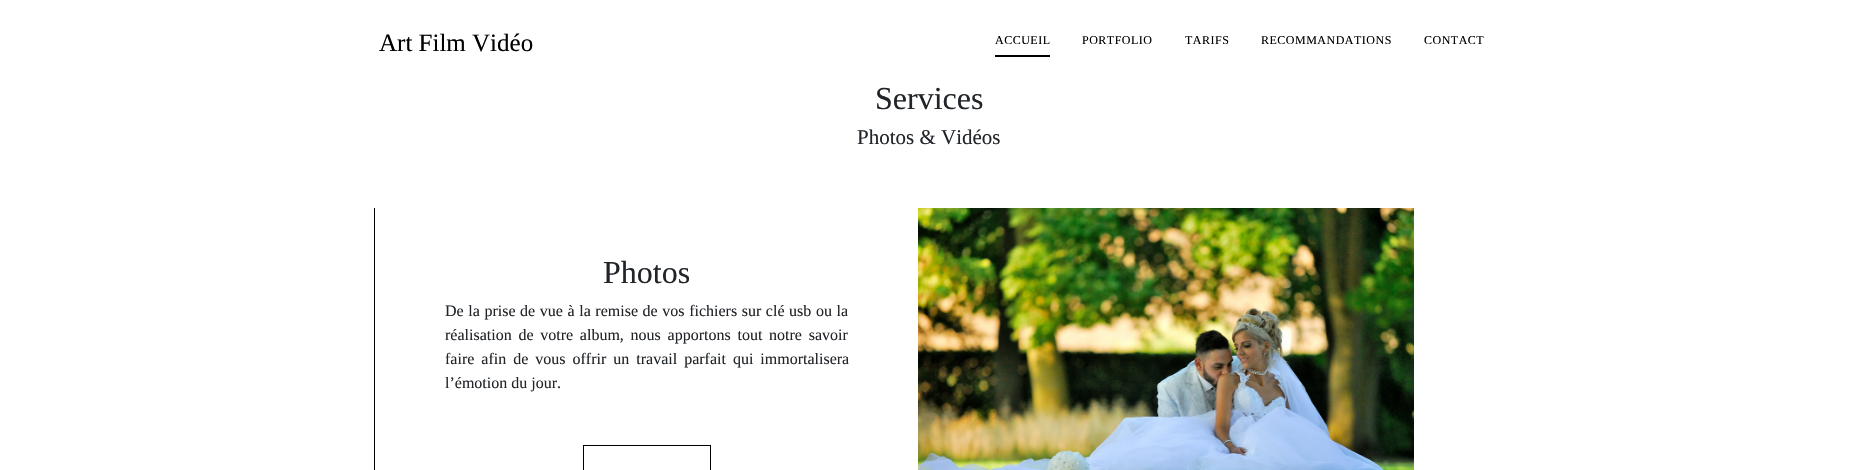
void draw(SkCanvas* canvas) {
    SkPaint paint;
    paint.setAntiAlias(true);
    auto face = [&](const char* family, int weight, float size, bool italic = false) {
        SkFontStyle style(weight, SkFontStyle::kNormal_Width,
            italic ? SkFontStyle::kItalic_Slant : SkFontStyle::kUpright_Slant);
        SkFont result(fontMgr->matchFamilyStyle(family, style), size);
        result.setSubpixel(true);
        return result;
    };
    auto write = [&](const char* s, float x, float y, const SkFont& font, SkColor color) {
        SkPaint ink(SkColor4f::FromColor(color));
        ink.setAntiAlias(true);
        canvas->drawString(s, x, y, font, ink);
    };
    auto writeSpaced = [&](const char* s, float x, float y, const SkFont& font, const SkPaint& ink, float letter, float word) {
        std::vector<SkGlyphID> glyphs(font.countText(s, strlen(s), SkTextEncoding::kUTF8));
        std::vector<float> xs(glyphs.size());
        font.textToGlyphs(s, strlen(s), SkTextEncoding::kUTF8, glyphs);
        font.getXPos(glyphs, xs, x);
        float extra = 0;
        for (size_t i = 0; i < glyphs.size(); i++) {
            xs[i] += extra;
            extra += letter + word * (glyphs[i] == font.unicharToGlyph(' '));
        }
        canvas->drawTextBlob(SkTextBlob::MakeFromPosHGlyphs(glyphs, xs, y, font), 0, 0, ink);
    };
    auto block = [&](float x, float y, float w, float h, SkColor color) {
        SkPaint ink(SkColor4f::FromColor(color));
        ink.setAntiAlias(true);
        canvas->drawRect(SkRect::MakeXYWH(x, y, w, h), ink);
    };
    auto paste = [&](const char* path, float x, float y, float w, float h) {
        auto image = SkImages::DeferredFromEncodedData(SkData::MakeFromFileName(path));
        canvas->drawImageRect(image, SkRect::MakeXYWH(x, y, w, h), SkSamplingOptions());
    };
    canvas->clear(SK_ColorWHITE);
    auto kFont1 = face("Liberation Serif", 400, 25);
    write("Art Film Vidéo", 379, 51, kFont1, SK_ColorBLACK);
    block(995, 55, 55, 2, SK_ColorBLACK);
    auto kFont2 = face("Liberation Serif", 400, 12);
    paint.setColor(SK_ColorBLACK);
    writeSpaced("ACCUEIL", 995, 44, kFont2, paint, 0.5f, 0);
    writeSpaced("PORTFOLIO", 1082, 44, kFont2, paint, 0.5f, 0);
    writeSpaced("TARIFS", 1185, 44, kFont2, paint, 0.5f, 0);
    writeSpaced("RECOMMANDATIONS", 1261, 44, kFont2, paint, 0.5f, 0);
    writeSpaced("CONTACT", 1424, 44, kFont2, paint, 0.5f, 0);
    auto kFont3 = face("Liberation Serif", 400, 32);
    write("Services", 875, 109, kFont3, SkColorSetRGB(33, 37, 41));
    auto kFont4 = face("Liberation Serif", 400, 21);
    write("Photos & Vidéos", 857, 144, kFont4, SkColorSetRGB(33, 37, 41));
    block(374, 208, 1, 262, SK_ColorBLACK);
    write("Photos", 603, 283, kFont3, SkColorSetRGB(33, 37, 41));
    auto kFont5 = face("Liberation Serif", 400, 16);
    paint.setColor(SkColorSetRGB(33, 37, 41));
    writeSpaced("De la prise de vue à la remise de vos fichiers sur clé usb ou la", 445, 316, kFont5, paint, 0, 0.6f);
    writeSpaced("réalisation de votre album, nous apportons tout notre savoir", 445, 340, kFont5, paint, 0, 2.75f);
    writeSpaced("faire afin de vous offrir un travail parfait qui immortalisera", 445, 364, kFont5, paint, 0, 3);
    write("l’émotion du jour.", 445, 388, kFont5, SkColorSetRGB(33, 37, 41));
    paint.setStyle(SkPaint::kStroke_Style);
    paint.setStrokeWidth(1);
    paint.setColor(SK_ColorBLACK);
    canvas->drawRect(SkRect::MakeXYWH(583.5f, 445.5f, 127, 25), paint);
    paste("pic1.png", 918, 208, 496, 262);
}
